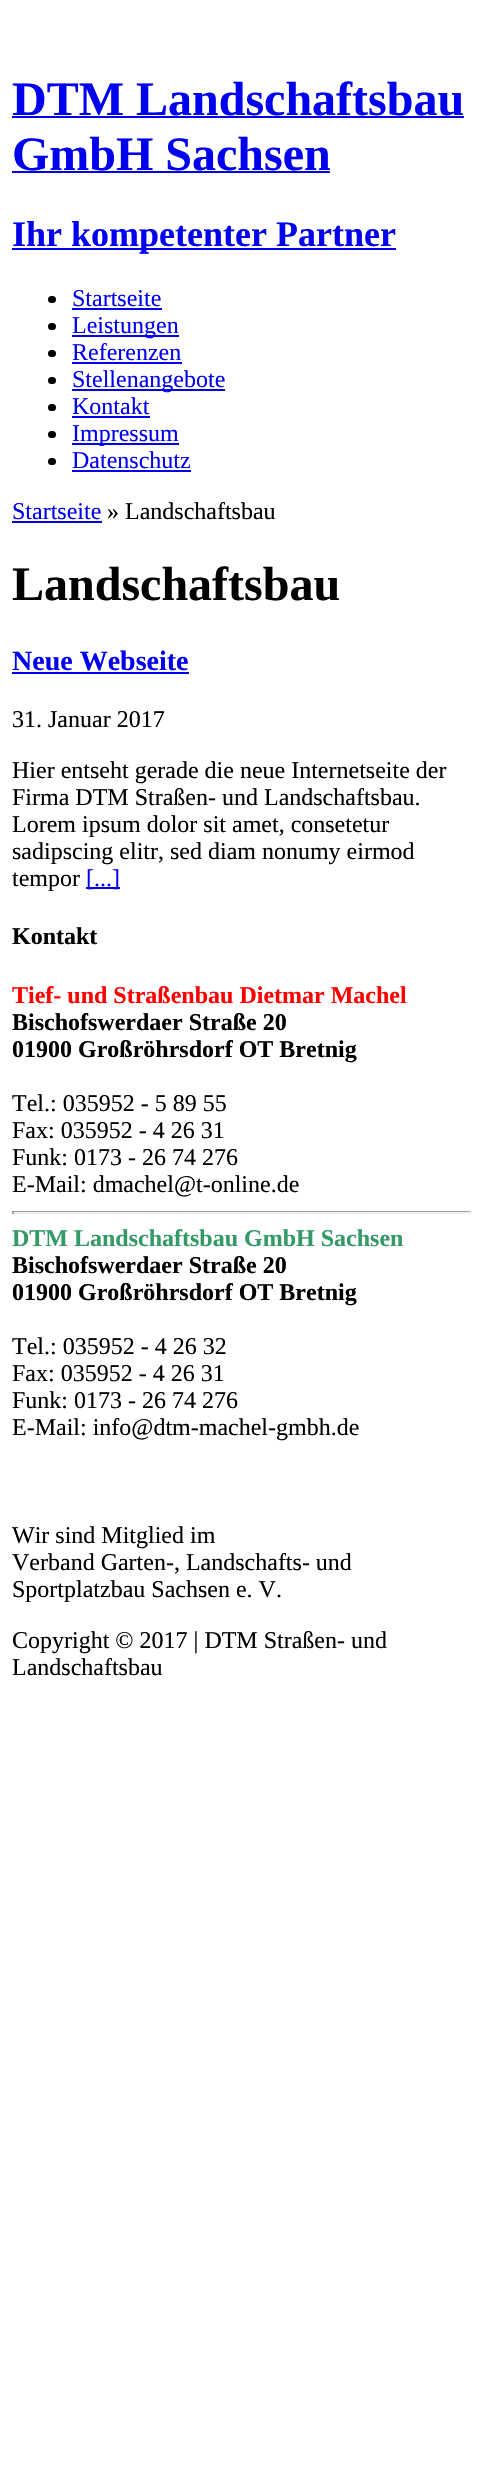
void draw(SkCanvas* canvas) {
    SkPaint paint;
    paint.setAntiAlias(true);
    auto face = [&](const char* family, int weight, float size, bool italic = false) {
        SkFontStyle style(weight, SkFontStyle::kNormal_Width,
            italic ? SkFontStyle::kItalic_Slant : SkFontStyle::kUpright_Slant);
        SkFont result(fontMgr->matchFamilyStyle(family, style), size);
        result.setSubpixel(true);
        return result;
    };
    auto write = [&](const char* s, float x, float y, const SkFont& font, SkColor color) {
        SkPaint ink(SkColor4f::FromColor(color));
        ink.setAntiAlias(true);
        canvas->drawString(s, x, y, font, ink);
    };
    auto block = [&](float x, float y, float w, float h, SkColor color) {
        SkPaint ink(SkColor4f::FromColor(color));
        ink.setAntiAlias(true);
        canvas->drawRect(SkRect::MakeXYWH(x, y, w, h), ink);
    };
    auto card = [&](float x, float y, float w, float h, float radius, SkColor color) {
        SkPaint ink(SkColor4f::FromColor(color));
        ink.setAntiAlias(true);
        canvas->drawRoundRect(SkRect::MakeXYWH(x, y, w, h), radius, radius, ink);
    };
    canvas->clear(SK_ColorWHITE);
    auto kFont1 = face("Liberation Serif", 700, 48);
    write("DTM Landschaftsbau", 12, 115, kFont1, SkColorSetRGB(0, 0, 238));
    block(12, 116, 452, 2, SkColorSetRGB(0, 0, 238));
    write("GmbH Sachsen", 12, 170, kFont1, SkColorSetRGB(0, 0, 238));
    block(12, 171, 318, 2, SkColorSetRGB(0, 0, 238));
    block(12, 248, 384, 2, SkColorSetRGB(0, 0, 238));
    auto kFont2 = face("Liberation Serif", 700, 36);
    write("Ihr kompetenter Partner", 12, 246, kFont2, SkColorSetRGB(0, 0, 238));
    card(48, 296, 8, 7, 3.5f, SK_ColorBLACK);
    auto kFont3 = face("Liberation Serif", 400, 24);
    write("Startseite", 72, 306, kFont3, SkColorSetRGB(0, 0, 238));
    block(72, 308, 90, 2, SkColorSetRGB(0, 0, 238));
    card(48, 323, 8, 7, 3.5f, SK_ColorBLACK);
    block(72, 335, 107, 2, SkColorSetRGB(0, 0, 238));
    write("Leistungen", 72, 333, kFont3, SkColorSetRGB(0, 0, 238));
    card(48, 350, 8, 7, 3.5f, SK_ColorBLACK);
    write("Referenzen", 72, 360, kFont3, SkColorSetRGB(0, 0, 238));
    block(72, 362, 110, 2, SkColorSetRGB(0, 0, 238));
    card(48, 377, 8, 7, 3.5f, SK_ColorBLACK);
    block(72, 389, 153, 2, SkColorSetRGB(0, 0, 238));
    write("Stellenangebote", 72, 387, kFont3, SkColorSetRGB(0, 0, 238));
    card(48, 404, 8, 7, 3.5f, SK_ColorBLACK);
    write("Kontakt", 72, 414, kFont3, SkColorSetRGB(0, 0, 238));
    block(72, 416, 78, 2, SkColorSetRGB(0, 0, 238));
    card(48, 431, 8, 7, 3.5f, SK_ColorBLACK);
    block(72, 443, 107, 2, SkColorSetRGB(0, 0, 238));
    write("Impressum", 72, 441, kFont3, SkColorSetRGB(0, 0, 238));
    card(48, 458, 8, 7, 3.5f, SK_ColorBLACK);
    write("Datenschutz", 72, 468, kFont3, SkColorSetRGB(0, 0, 238));
    block(72, 470, 119, 2, SkColorSetRGB(0, 0, 238));
    write("Startseite", 12, 519, kFont3, SkColorSetRGB(0, 0, 238));
    block(12, 521, 90, 2, SkColorSetRGB(0, 0, 238));
    write("» Landschaftsbau", 107, 519, kFont3, SK_ColorBLACK);
    write("Landschaftsbau", 12, 600, kFont1, SK_ColorBLACK);
    auto kFont4 = face("Liberation Serif", 700, 28);
    write("Neue Webseite", 12, 670, kFont4, SkColorSetRGB(0, 0, 238));
    block(12, 672, 177, 2, SkColorSetRGB(0, 0, 238));
    write("31. Januar 2017", 12, 727, kFont3, SK_ColorBLACK);
    write("Hier entseht gerade die neue Internetseite der", 12, 778, kFont3, SK_ColorBLACK);
    write("Firma DTM Straßen- und Landschaftsbau.", 12, 805, kFont3, SK_ColorBLACK);
    write("Lorem ipsum dolor sit amet, consetetur", 12, 832, kFont3, SK_ColorBLACK);
    write("sadipscing elitr, sed diam nonumy eirmod", 12, 859, kFont3, SK_ColorBLACK);
    write("tempor", 12, 886, kFont3, SK_ColorBLACK);
    block(86, 887, 34, 2, SkColorSetRGB(0, 0, 238));
    write("[...]", 86, 886, kFont3, SkColorSetRGB(0, 0, 238));
    auto kFont5 = face("Liberation Serif", 700, 24);
    write("Kontakt", 12, 944, kFont5, SK_ColorBLACK);
    write("Tief- und Straßenbau Dietmar Machel", 12, 1003, kFont5, SkColorSetRGB(255, 0, 0));
    write("Bischofswerdaer Straße 20", 12, 1030, kFont5, SK_ColorBLACK);
    write("01900 Großröhrsdorf OT Bretnig", 12, 1057, kFont5, SK_ColorBLACK);
    write("Tel.: 035952 - 5 89 55", 12, 1111, kFont3, SK_ColorBLACK);
    write("Fax: 035952 - 4 26 31", 12, 1138, kFont3, SK_ColorBLACK);
    write("Funk: 0173 - 26 74 276", 12, 1165, kFont3, SK_ColorBLACK);
    write("E-Mail: dmachel@t-online.de", 12, 1192, kFont3, SK_ColorBLACK);
    block(12, 1211, 459, 1, SkColorSetRGB(159, 159, 159));
    block(470, 1211, 2, 3, SkColorSetRGB(238, 238, 238));
    block(12, 1212, 459, 2, SkColorSetRGB(238, 238, 238));
    block(12, 1211, 2, 3, SkColorSetRGB(159, 159, 159));
    write("DTM Landschaftsbau GmbH Sachsen", 12, 1246, kFont5, SkColorSetRGB(51, 153, 102));
    write("Bischofswerdaer Straße 20", 12, 1273, kFont5, SK_ColorBLACK);
    write("01900 Großröhrsdorf OT Bretnig", 12, 1300, kFont5, SK_ColorBLACK);
    write("Tel.: 035952 - 4 26 32", 12, 1354, kFont3, SK_ColorBLACK);
    write("Fax: 035952 - 4 26 31", 12, 1381, kFont3, SK_ColorBLACK);
    write("Funk: 0173 - 26 74 276", 12, 1408, kFont3, SK_ColorBLACK);
    write("E-Mail: info@dtm-machel-gmbh.de", 12, 1435, kFont3, SK_ColorBLACK);
    write("Wir sind Mitglied im", 12, 1543, kFont3, SK_ColorBLACK);
    write("Verband Garten-, Landschafts- und", 12, 1570, kFont3, SK_ColorBLACK);
    write("Sportplatzbau Sachsen e. V.", 12, 1597, kFont3, SK_ColorBLACK);
    write("Copyright © 2017 | DTM Straßen- und", 12, 1648, kFont3, SK_ColorBLACK);
    write("Landschaftsbau", 12, 1675, kFont3, SK_ColorBLACK);
}
